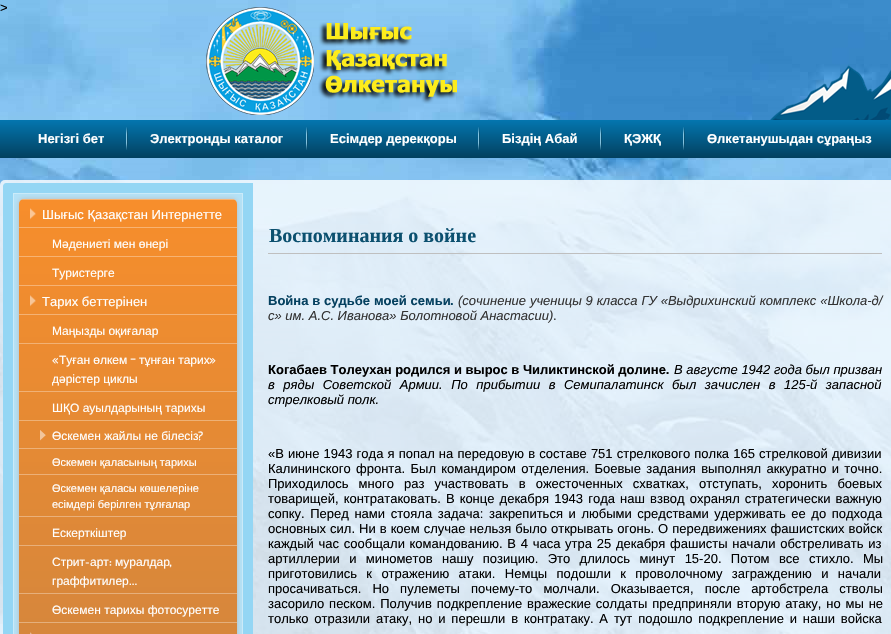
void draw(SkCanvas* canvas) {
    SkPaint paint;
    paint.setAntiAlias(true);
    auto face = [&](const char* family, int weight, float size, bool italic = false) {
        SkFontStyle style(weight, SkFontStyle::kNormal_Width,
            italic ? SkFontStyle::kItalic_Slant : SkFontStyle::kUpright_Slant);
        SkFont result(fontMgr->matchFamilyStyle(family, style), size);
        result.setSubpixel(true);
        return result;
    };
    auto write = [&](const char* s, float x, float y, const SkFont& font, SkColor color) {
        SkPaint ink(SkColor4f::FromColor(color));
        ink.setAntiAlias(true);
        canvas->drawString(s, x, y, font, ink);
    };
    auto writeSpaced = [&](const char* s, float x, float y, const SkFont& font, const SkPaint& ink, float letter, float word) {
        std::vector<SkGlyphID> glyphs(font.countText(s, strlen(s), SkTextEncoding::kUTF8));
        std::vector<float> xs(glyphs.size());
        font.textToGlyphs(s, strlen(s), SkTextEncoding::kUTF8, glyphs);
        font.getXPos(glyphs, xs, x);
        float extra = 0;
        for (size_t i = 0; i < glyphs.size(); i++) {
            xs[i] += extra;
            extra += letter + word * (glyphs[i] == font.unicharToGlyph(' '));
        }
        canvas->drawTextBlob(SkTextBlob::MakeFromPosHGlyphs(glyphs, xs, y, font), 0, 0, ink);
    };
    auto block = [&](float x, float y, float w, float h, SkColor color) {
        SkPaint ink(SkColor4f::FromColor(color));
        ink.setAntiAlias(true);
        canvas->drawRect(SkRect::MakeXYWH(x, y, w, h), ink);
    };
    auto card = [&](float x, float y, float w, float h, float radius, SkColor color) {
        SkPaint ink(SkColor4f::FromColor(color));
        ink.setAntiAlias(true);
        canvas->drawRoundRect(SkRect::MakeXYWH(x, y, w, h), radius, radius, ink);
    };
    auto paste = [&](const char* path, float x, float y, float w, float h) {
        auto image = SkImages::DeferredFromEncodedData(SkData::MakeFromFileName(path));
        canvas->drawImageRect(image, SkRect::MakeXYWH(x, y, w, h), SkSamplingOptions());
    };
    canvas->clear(SK_ColorWHITE);
    paste("pic1.png", 0, 0, 891, 634);
    auto kFont1 = face("Liberation Sans", 400, 13);
    write(">", 0, 12, kFont1, SK_ColorBLACK);
    paste("pic2.png", 206, 7, 251, 108);
    paste("pic3.png", 770, 65, 121, 55);
    {
        const SkColor colors[] = {SkColorSetRGB(4, 118, 175), SkColorSetRGB(2, 64, 95)};
        const float stops[] = {0, 1};
        const SkPoint ends[] = {{580, 120}, {580, 158}};
        paint.setShader(SkGradientShader::MakeLinear(ends, colors, stops, 2, SkTileMode::kClamp));
        paint.setAlpha(255);
    }
    canvas->drawRect(SkRect::MakeXYWH(0, 120, 891, 38), paint);
    auto kFont2 = face("Liberation Sans", 700, 13);
    write("Негізгі бет", 38, 143, kFont2, SK_ColorWHITE);
    paste("pic4.png", 126, 127, 2, 23);
    write("Электронды каталог", 150, 143, kFont2, SK_ColorWHITE);
    paste("pic4.png", 306, 127, 2, 23);
    write("Есімдер дерекқоры", 330, 143, kFont2, SK_ColorWHITE);
    paste("pic4.png", 478, 127, 2, 23);
    write("Біздің Абай", 502, 143, kFont2, SK_ColorWHITE);
    paste("pic4.png", 600, 127, 2, 23);
    write("ҚЭЖҚ", 624, 143, kFont2, SK_ColorWHITE);
    paste("pic4.png", 683, 127, 2, 23);
    write("Өлкетанушыдан сұраңыз", 707, 143, kFont2, SK_ColorWHITE);
    card(0, 180, 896, 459, 5, SkColorSetARGB(204, 255, 255, 255));
    paint.setShader(nullptr);
    paint.setColor(SkColorSetRGB(148, 214, 244));
    canvas->drawPath(SkPathBuilder().moveTo(6, 183).lineTo(253, 183).lineTo(253, 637).lineTo(3, 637).lineTo(3, 186).cubicTo(3, 184.5f, 4.5f, 183, 6, 183).close().detach(), paint);
    paint.setColor(SkColorSetRGB(180, 226, 247));
    canvas->drawRect(SkRect::MakeXYWH(13.5f, 193.5f, 229, 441), paint);
    paint.setStyle(SkPaint::kStroke_Style);
    paint.setStrokeWidth(1);
    paint.setColor(SkColorSetRGB(203, 235, 249));
    canvas->drawRect(SkRect::MakeXYWH(13.5f, 193.5f, 229, 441), paint);
    paint.setStyle(SkPaint::kFill_Style);
    paint.setColor(SkColorSetRGB(187, 187, 187));
    paint.setMaskFilter(SkMaskFilter::MakeBlur(kNormal_SkBlurStyle, 2.5f));
    canvas->drawRoundRect(SkRect::MakeXYWH(19, 199, 218, 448), 5, 5, paint);
    paint.setMaskFilter(nullptr);
    paste("pic5.png", 19, 199, 218, 435);
    paste("pic6.png", 21, 199, 214, 1);
    block(19, 227, 218, 1, SkColorSetRGB(248, 179, 114));
    paste("pic7.png", 30, 208, 6, 12);
    write("Шығыс Қазақстан Интернетте", 42, 219, kFont1, SK_ColorWHITE);
    block(19, 256, 218, 1, SkColorSetRGB(247, 179, 114));
    auto kFont3 = face("Liberation Sans", 400, 12);
    write("Мәдениеті мен өнері", 52, 248, kFont3, SK_ColorWHITE);
    block(19, 285, 218, 1, SkColorSetRGB(246, 178, 116));
    write("Туристерге", 52, 277, kFont3, SK_ColorWHITE);
    block(19, 314, 218, 1, SkColorSetRGB(244, 178, 116));
    paste("pic8.png", 30, 295, 6, 12);
    write("Тарих беттерінен", 42, 306, kFont1, SK_ColorWHITE);
    block(19, 343, 218, 1, SkColorSetRGB(242, 177, 116));
    write("Маңызды оқиғалар", 52, 335, kFont3, SK_ColorWHITE);
    block(19, 391, 218, 1, SkColorSetRGB(240, 177, 118));
    auto kFont4 = face("Mako", 400, 12);
    write("«", 52, 364, kFont4, SK_ColorWHITE);
    write("Туған өлкем", 59, 364, kFont3, SK_ColorWHITE);
    write("–", 130, 364, kFont4, SK_ColorWHITE);
    write("тұнған тарих", 139, 364, kFont3, SK_ColorWHITE);
    write("»", 209, 364, kFont4, SK_ColorWHITE);
    write("дәрістер циклы", 52, 383, kFont3, SK_ColorWHITE);
    block(19, 420, 218, 1, SkColorSetRGB(238, 177, 118));
    write("ШҚО ауылдарының тарихы", 52, 412, kFont3, SK_ColorWHITE);
    block(19, 448, 218, 1, SkColorSetRGB(237, 177, 120));
    paste("pic9.png", 40, 430, 6, 11);
    write("Өскемен жайлы не білесіз", 52, 440, kFont3, SK_ColorWHITE);
    write("?", 198, 440, kFont4, SK_ColorWHITE);
    block(19, 474, 218, 1, SkColorSetRGB(236, 176, 120));
    auto kFont5 = face("Liberation Sans", 400, 11);
    write("Өскемен қаласының тарихы", 52, 466, kFont5, SK_ColorWHITE);
    block(19, 516, 218, 1, SkColorSetRGB(234, 176, 122));
    write("Өскемен қаласы көшелеріне", 52, 492, kFont5, SK_ColorWHITE);
    write("есімдері берілген тұлғалар", 52, 508, kFont5, SK_ColorWHITE);
    block(19, 545, 218, 1, SkColorSetRGB(232, 175, 122));
    write("Ескерткіштер", 52, 537, kFont3, SK_ColorWHITE);
    block(19, 593, 218, 1, SkColorSetRGB(230, 175, 123));
    write("Стрит", 52, 566, kFont3, SK_ColorWHITE);
    write("-", 85, 566, kFont4, SK_ColorWHITE);
    write("арт", 90, 566, kFont3, SK_ColorWHITE);
    write(":", 109, 566, kFont4, SK_ColorWHITE);
    write("муралдар", 115, 566, kFont3, SK_ColorWHITE);
    write(",", 169, 566, kFont4, SK_ColorWHITE);
    write("граффитилер", 52, 585, kFont3, SK_ColorWHITE);
    write("...", 129, 585, kFont4, SK_ColorWHITE);
    block(19, 622, 218, 1, SkColorSetRGB(228, 175, 124));
    write("Өскемен тарихы фотосуретте", 52, 614, kFont3, SK_ColorWHITE);
    paste("pic10.png", 30, 632, 2, 2);
    block(268, 253, 614, 1, SkColorSetRGB(191, 191, 191));
    auto kFont6 = face("Liberation Serif", 700, 20);
    write("Воспоминания о войне", 269, 242, kFont6, SkColorSetRGB(11, 80, 111));
    paint.setColor(SkColorSetRGB(4, 64, 95));
    writeSpaced("Война в судьбе моей семьи", 268, 305, kFont2, paint, 0, 0.25f);
    write(".", 450, 305, kFont2, SkColorSetRGB(4, 64, 95));
    auto kFont7 = face("Liberation Sans", 400, 13, true);
    paint.setColor(SkColorSetRGB(51, 51, 51));
    writeSpaced("(сочинение ученицы 9 класса ГУ «Выдрихинский комплекс «Школа-д/", 458, 305, kFont7, paint, 0, 0.25f);
    write("с» им. А.С. Иванова» Болотновой Анастасии)", 268, 320, kFont7, SkColorSetRGB(51, 51, 51));
    write(".", 553, 320, kFont1, SkColorSetRGB(51, 51, 51));
    write("Когабаев Толеухан родился и вырос в Чиликтинской долине.", 268, 374, kFont2, SK_ColorBLACK);
    write("В августе 1942 года был призван", 674, 374, kFont7, SK_ColorBLACK);
    paint.setColor(SK_ColorBLACK);
    writeSpaced("в ряды Советской Армии. По прибытии в Семипалатинск был зачислен в 125-й запасной", 268, 389, kFont7, paint, 0, 4.9f);
    write("стрелковый полк.", 268, 404, kFont7, SK_ColorBLACK);
    writeSpaced("«В июне 1943 года я попал на передовую в составе 751 стрелкового полка 165 стрелковой дивизии", 268, 458, kFont1, paint, 0, 0.5f);
    writeSpaced("Калининского фронта. Был командиром отделения. Боевые задания выполнял аккуратно и точно.", 268, 473, kFont1, paint, 0, 1.75f);
    writeSpaced("Приходилось много раз участвовать в ожесточенных схватках, отступать, хоронить боевых", 268, 488, kFont1, paint, 0, 6.5f);
    writeSpaced("товарищей, контратаковать. В конце декабря 1943 года наш взвод охранял стратегически важную", 268, 503, kFont1, paint, 0, 1.5f);
    writeSpaced("сопку. Перед нами стояла задача: закрепиться и любыми средствами удерживать ее до подхода", 268, 518, kFont1, paint, 0, 2);
    writeSpaced("основных сил. Ни в коем случае нельзя было открывать огонь. О передвижениях фашистских войск", 268, 533, kFont1, paint, 0, 0.4f);
    writeSpaced("каждый час сообщали командованию. В 4 часа утра 25 декабря фашисты начали обстреливать из", 268, 548, kFont1, paint, 0, 1.1f);
    writeSpaced("артиллерии и минометов нашу позицию. Это длилось минут 15-20. Потом все стихло. Мы", 268, 563, kFont1, paint, 0, 5.75f);
    writeSpaced("приготовились к отражению атаки. Немцы подошли к проволочному заграждению и начали", 268, 578, kFont1, paint, 0, 5.75f);
    writeSpaced("просачиваться. Но пулеметы почему-то молчали. Оказывается, после артобстрела стволы", 268, 593, kFont1, paint, 0, 7.5f);
    writeSpaced("засорило песком. Получив подкрепление вражеские солдаты предприняли вторую атаку, но мы не", 268, 608, kFont1, paint, 0, 1.25f);
    writeSpaced("только отразили атаку, но и перешли в контратаку. А тут подошло подкрепление и наши войска", 268, 623, kFont1, paint, 0, 2.25f);
}
